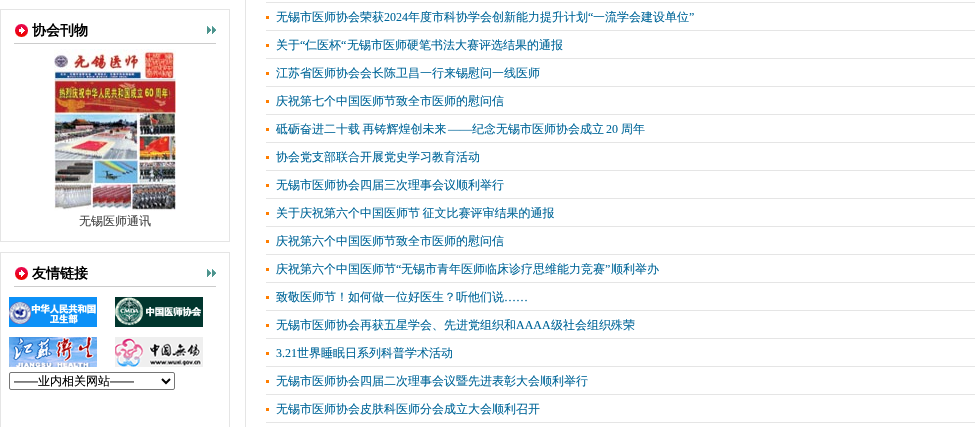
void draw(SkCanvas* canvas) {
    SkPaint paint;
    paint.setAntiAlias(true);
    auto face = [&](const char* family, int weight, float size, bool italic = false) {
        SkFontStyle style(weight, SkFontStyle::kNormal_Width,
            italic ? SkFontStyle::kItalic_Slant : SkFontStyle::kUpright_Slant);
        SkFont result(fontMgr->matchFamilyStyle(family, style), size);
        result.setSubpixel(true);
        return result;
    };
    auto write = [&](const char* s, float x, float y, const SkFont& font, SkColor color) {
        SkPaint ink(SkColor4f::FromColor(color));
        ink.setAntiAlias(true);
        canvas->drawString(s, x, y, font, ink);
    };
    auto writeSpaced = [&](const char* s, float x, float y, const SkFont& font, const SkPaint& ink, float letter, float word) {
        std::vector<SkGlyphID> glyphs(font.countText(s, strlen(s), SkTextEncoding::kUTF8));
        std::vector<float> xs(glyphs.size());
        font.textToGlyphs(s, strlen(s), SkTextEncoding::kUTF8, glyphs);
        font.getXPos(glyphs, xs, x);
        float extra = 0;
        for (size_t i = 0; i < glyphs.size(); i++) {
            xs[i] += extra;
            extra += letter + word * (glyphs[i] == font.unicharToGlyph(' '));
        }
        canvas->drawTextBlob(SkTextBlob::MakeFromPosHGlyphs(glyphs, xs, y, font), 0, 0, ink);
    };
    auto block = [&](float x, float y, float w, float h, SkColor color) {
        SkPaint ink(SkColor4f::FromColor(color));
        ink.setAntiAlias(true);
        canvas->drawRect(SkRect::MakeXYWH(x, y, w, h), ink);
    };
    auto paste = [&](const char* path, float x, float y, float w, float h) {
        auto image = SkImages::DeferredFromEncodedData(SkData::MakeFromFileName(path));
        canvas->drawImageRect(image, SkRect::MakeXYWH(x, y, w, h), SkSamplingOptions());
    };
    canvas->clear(SK_ColorWHITE);
    paint.setStyle(SkPaint::kStroke_Style);
    paint.setStrokeWidth(1);
    paint.setColor(SkColorSetRGB(229, 229, 229));
    canvas->drawRect(SkRect::MakeXYWH(0.5f, 9.5f, 229, 232), paint);
    paste("pic1.png", 15, 24, 13, 13);
    block(14, 43, 202, 1, SkColorSetRGB(204, 204, 204));
    auto kFont1 = face("WenQuanYi Zen Hei", 700, 14);
    write("协会刊物", 32, 35, kFont1, SK_ColorBLACK);
    paste("pic2.png", 207, 26, 9, 8);
    paste("pic3.png", 54, 49, 122, 162);
    auto kFont2 = face("WenQuanYi Zen Hei", 500, 12);
    write("无锡医师通讯", 79, 225, kFont2, SkColorSetRGB(68, 68, 68));
    canvas->drawRect(SkRect::MakeXYWH(0.5f, 252.5f, 229, 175), paint);
    paste("pic1.png", 15, 267, 13, 13);
    block(14, 286, 202, 1, SkColorSetRGB(204, 204, 204));
    write("友情链接", 32, 278, kFont1, SK_ColorBLACK);
    paste("pic2.png", 207, 269, 9, 8);
    paste("pic4.png", 9, 297, 88, 30);
    paste("pic5.png", 115, 297, 88, 30);
    paste("pic6.png", 9, 337, 88, 30);
    paste("pic7.png", 115, 337, 88, 30);
    paint.setColor(SkColorSetRGB(118, 118, 118));
    canvas->drawRoundRect(SkRect::MakeXYWH(9.5f, 372.5f, 165, 17), 1.5f, 1.5f, paint);
    paint.setStrokeWidth(2);
    paint.setColor(SK_ColorBLACK);
    canvas->drawPath(SkPathBuilder().moveTo(162, 379).lineTo(166, 383).lineTo(170, 379).detach(), paint);
    auto kFont3 = face("Liberation Sans", 400, 12);
    write("——", 14, 385, kFont3, SK_ColorBLACK);
    write("业内相关网站", 38, 385, kFont2, SK_ColorBLACK);
    write("——", 110, 385, kFont3, SK_ColorBLACK);
    block(245, 0, 1, 427, SkColorSetRGB(229, 229, 229));
    block(266, 2, 709, 1, SkColorSetRGB(229, 229, 229));
    block(266, 16, 3, 3, SkColorSetRGB(255, 126, 0));
    block(266, 30, 709, 1, SkColorSetRGB(229, 229, 229));
    write("无锡市医师协会荣获", 276, 21, kFont2, SkColorSetRGB(0, 102, 153));
    auto kFont4 = face("Liberation Serif", 400, 12);
    write("2024", 384, 21, kFont4, SkColorSetRGB(0, 102, 153));
    write("年度市科协学会创新能力提升计划", 408, 21, kFont2, SkColorSetRGB(0, 102, 153));
    write("“", 588, 21, kFont4, SkColorSetRGB(0, 102, 153));
    write("一流学会建设单位", 593, 21, kFont2, SkColorSetRGB(0, 102, 153));
    write("”", 689, 21, kFont4, SkColorSetRGB(0, 102, 153));
    block(266, 44, 3, 3, SkColorSetRGB(255, 126, 0));
    block(266, 58, 709, 1, SkColorSetRGB(229, 229, 229));
    write("关于", 276, 49, kFont2, SkColorSetRGB(0, 102, 153));
    write("“", 300, 49, kFont4, SkColorSetRGB(0, 102, 153));
    write("仁医杯", 305, 49, kFont2, SkColorSetRGB(0, 102, 153));
    write("“", 341, 49, kFont4, SkColorSetRGB(0, 102, 153));
    write("无锡市医师硬笔书法大赛评选结果的通报", 347, 49, kFont2, SkColorSetRGB(0, 102, 153));
    block(266, 72, 3, 3, SkColorSetRGB(255, 126, 0));
    block(266, 86, 709, 1, SkColorSetRGB(229, 229, 229));
    write("江苏省医师协会会长陈卫昌一行来锡慰问一线医师", 276, 77, kFont2, SkColorSetRGB(0, 102, 153));
    block(266, 100, 3, 3, SkColorSetRGB(255, 126, 0));
    block(266, 114, 709, 1, SkColorSetRGB(229, 229, 229));
    write("庆祝第七个中国医师节致全市医师的慰问信", 276, 105, kFont2, SkColorSetRGB(0, 102, 153));
    block(266, 128, 3, 3, SkColorSetRGB(255, 126, 0));
    block(266, 142, 709, 1, SkColorSetRGB(229, 229, 229));
    paint.setStyle(SkPaint::kFill_Style);
    paint.setColor(SkColorSetRGB(0, 102, 153));
    writeSpaced("砥砺奋进二十载 再铸辉煌创未来", 276, 133, kFont2, paint, 0, -1);
    write("——", 448, 133, kFont4, SkColorSetRGB(0, 102, 153));
    write("纪念无锡市医师协会成立", 472, 133, kFont2, SkColorSetRGB(0, 102, 153));
    write("20", 606, 133, kFont4, SkColorSetRGB(0, 102, 153));
    write("周年", 621, 133, kFont2, SkColorSetRGB(0, 102, 153));
    block(266, 156, 3, 3, SkColorSetRGB(255, 126, 0));
    block(266, 170, 709, 1, SkColorSetRGB(229, 229, 229));
    write("协会党支部联合开展党史学习教育活动", 276, 161, kFont2, SkColorSetRGB(0, 102, 153));
    block(266, 184, 3, 3, SkColorSetRGB(255, 126, 0));
    block(266, 198, 709, 1, SkColorSetRGB(229, 229, 229));
    write("无锡市医师协会四届三次理事会议顺利举行", 276, 189, kFont2, SkColorSetRGB(0, 102, 153));
    block(266, 212, 3, 3, SkColorSetRGB(255, 126, 0));
    block(266, 226, 709, 1, SkColorSetRGB(229, 229, 229));
    writeSpaced("关于庆祝第六个中国医师节 征文比赛评审结果的通报", 276, 217, kFont2, paint, 0, -1);
    block(266, 240, 3, 3, SkColorSetRGB(255, 126, 0));
    block(266, 254, 709, 1, SkColorSetRGB(229, 229, 229));
    write("庆祝第六个中国医师节致全市医师的慰问信", 276, 245, kFont2, SkColorSetRGB(0, 102, 153));
    block(266, 268, 3, 3, SkColorSetRGB(255, 126, 0));
    block(266, 282, 709, 1, SkColorSetRGB(229, 229, 229));
    write("庆祝第六个中国医师节", 276, 273, kFont2, SkColorSetRGB(0, 102, 153));
    write("“", 396, 273, kFont4, SkColorSetRGB(0, 102, 153));
    write("无锡市青年医师临床诊疗思维能力竞赛", 401, 273, kFont2, SkColorSetRGB(0, 102, 153));
    write("”", 605, 273, kFont4, SkColorSetRGB(0, 102, 153));
    write("顺利举办", 611, 273, kFont2, SkColorSetRGB(0, 102, 153));
    block(266, 296, 3, 3, SkColorSetRGB(255, 126, 0));
    block(266, 310, 709, 1, SkColorSetRGB(229, 229, 229));
    write("致敬医师节！如何做一位好医生？听他们说", 276, 301, kFont2, SkColorSetRGB(0, 102, 153));
    write("……", 504, 301, kFont4, SkColorSetRGB(0, 102, 153));
    block(266, 324, 3, 3, SkColorSetRGB(255, 126, 0));
    block(266, 338, 709, 1, SkColorSetRGB(229, 229, 229));
    write("无锡市医师协会再获五星学会、先进党组织和", 276, 329, kFont2, SkColorSetRGB(0, 102, 153));
    write("AAAA", 516, 329, kFont4, SkColorSetRGB(0, 102, 153));
    write("级社会组织殊荣", 551, 329, kFont2, SkColorSetRGB(0, 102, 153));
    block(266, 352, 3, 3, SkColorSetRGB(255, 126, 0));
    block(266, 366, 709, 1, SkColorSetRGB(229, 229, 229));
    write("3.21", 276, 357, kFont4, SkColorSetRGB(0, 102, 153));
    write("世界睡眠日系列科普学术活动", 297, 357, kFont2, SkColorSetRGB(0, 102, 153));
    block(266, 380, 3, 3, SkColorSetRGB(255, 126, 0));
    block(266, 394, 709, 1, SkColorSetRGB(229, 229, 229));
    write("无锡市医师协会四届二次理事会议暨先进表彰大会顺利举行", 276, 385, kFont2, SkColorSetRGB(0, 102, 153));
    block(266, 408, 3, 3, SkColorSetRGB(255, 126, 0));
    block(266, 422, 709, 1, SkColorSetRGB(229, 229, 229));
    write("无锡市医师协会皮肤科医师分会成立大会顺利召开", 276, 413, kFont2, SkColorSetRGB(0, 102, 153));
}
